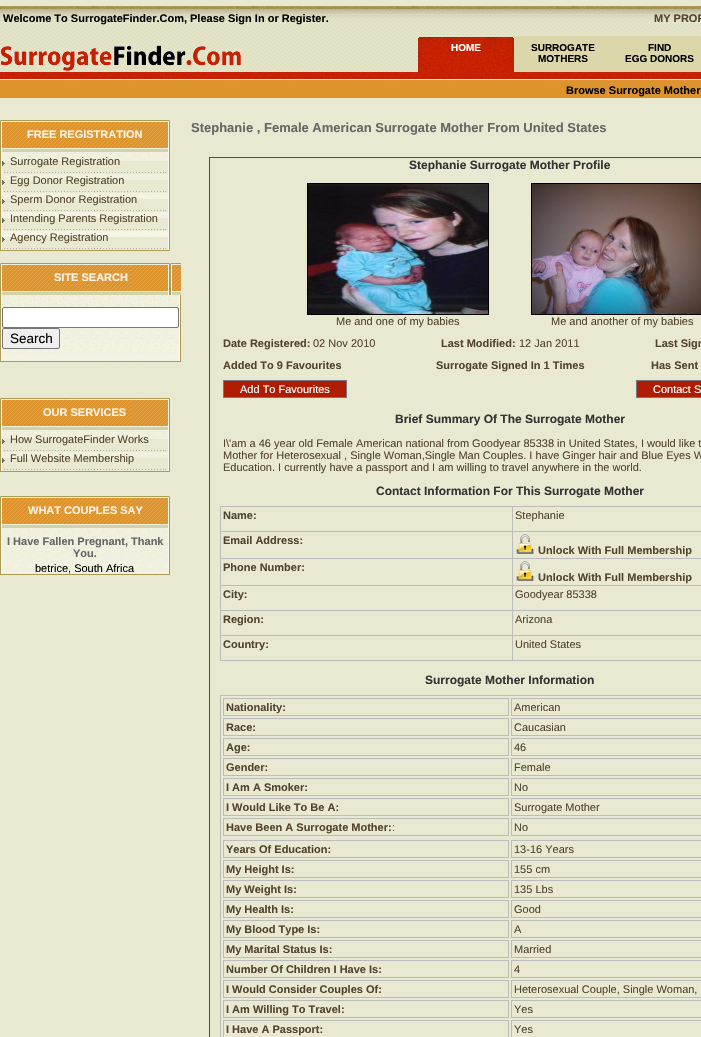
void draw(SkCanvas* canvas) {
    SkPaint paint;
    paint.setAntiAlias(true);
    auto face = [&](const char* family, int weight, float size, bool italic = false) {
        SkFontStyle style(weight, SkFontStyle::kNormal_Width,
            italic ? SkFontStyle::kItalic_Slant : SkFontStyle::kUpright_Slant);
        SkFont result(fontMgr->matchFamilyStyle(family, style), size);
        result.setSubpixel(true);
        return result;
    };
    auto write = [&](const char* s, float x, float y, const SkFont& font, SkColor color) {
        SkPaint ink(SkColor4f::FromColor(color));
        ink.setAntiAlias(true);
        canvas->drawString(s, x, y, font, ink);
    };
    auto block = [&](float x, float y, float w, float h, SkColor color) {
        SkPaint ink(SkColor4f::FromColor(color));
        ink.setAntiAlias(true);
        canvas->drawRect(SkRect::MakeXYWH(x, y, w, h), ink);
    };
    auto paste = [&](const char* path, float x, float y, float w, float h) {
        auto image = SkImages::DeferredFromEncodedData(SkData::MakeFromFileName(path));
        canvas->drawImageRect(image, SkRect::MakeXYWH(x, y, w, h), SkSamplingOptions());
    };
    canvas->clear(SkColorSetRGB(233, 233, 209));
    paste("pic1.png", 0, 6, 701, 93);
    auto kFont1 = face("Liberation Sans", 700, 11);
    write("Welcome To SurrogateFinder.Com, Please Sign In or Register.", 3, 22, kFont1, SK_ColorBLACK);
    write("MY PROF", 654, 22, kFont1, SkColorSetRGB(82, 68, 44));
    paste("pic2.png", 0, 45, 241, 26);
    paste("pic3.png", 418, 36, 96, 36);
    auto kFont2 = face("Liberation Sans", 700, 10);
    write("HOME", 451, 51, kFont2, SK_ColorWHITE);
    block(514, 36, 187, 36, SkColorSetRGB(219, 215, 171));
    write("SURROGATE", 531, 51, kFont2, SK_ColorBLACK);
    write("MOTHERS", 538, 62, kFont2, SK_ColorBLACK);
    write("FIND", 648, 51, kFont2, SK_ColorBLACK);
    write("EGG DONORS", 625, 62, kFont2, SK_ColorBLACK);
    write("Browse Surrogate Mother", 566, 94, kFont1, SK_ColorBLACK);
    paste("pic4.png", 0, 120, 170, 32);
    write("FREE REGISTRATION", 27, 138, kFont1, SkColorSetRGB(252, 243, 229));
    paste("pic5.png", 0, 152, 2, 98);
    paste("pic6.png", 2, 152, 166, 85);
    paste("pic7.png", 2, 161, 166, 13);
    auto kFont3 = face("Liberation Sans", 400, 11);
    write("Surrogate Registration", 10, 165, kFont3, SkColorSetRGB(82, 68, 44));
    paste("pic7.png", 2, 180, 166, 13);
    write("Egg Donor Registration", 10, 184, kFont3, SkColorSetRGB(82, 68, 44));
    paste("pic7.png", 2, 199, 166, 13);
    write("Sperm Donor Registration", 10, 203, kFont3, SkColorSetRGB(82, 68, 44));
    paste("pic7.png", 2, 218, 166, 13);
    write("Intending Parents Registration", 10, 222, kFont3, SkColorSetRGB(82, 68, 44));
    paste("pic7.png", 2, 237, 166, 13);
    write("Agency Registration", 10, 241, kFont3, SkColorSetRGB(82, 68, 44));
    paste("pic8.png", 168, 152, 2, 98);
    block(0, 250, 170, 1, SkColorSetRGB(172, 155, 85));
    paste("pic9.png", 0, 263, 181, 32);
    write("SITE SEARCH", 54, 281, kFont1, SkColorSetRGB(252, 243, 229));
    paste("pic10.png", 0, 295, 2, 66);
    paste("pic11.png", 2, 295, 177, 66);
    paint.setColor(SK_ColorWHITE);
    canvas->drawRoundRect(SkRect::MakeXYWH(2.5f, 307.5f, 176, 20), 1.5f, 1.5f, paint);
    paint.setStyle(SkPaint::kStroke_Style);
    paint.setStrokeWidth(1);
    paint.setColor(SkColorSetRGB(118, 118, 118));
    canvas->drawRoundRect(SkRect::MakeXYWH(2.5f, 307.5f, 176, 20), 1.5f, 1.5f, paint);
    paint.setStyle(SkPaint::kFill_Style);
    paint.setColor(SkColorSetRGB(239, 239, 239));
    canvas->drawRoundRect(SkRect::MakeXYWH(2.5f, 328.5f, 57, 20), 1.5f, 1.5f, paint);
    paint.setStyle(SkPaint::kStroke_Style);
    paint.setColor(SkColorSetRGB(118, 118, 118));
    canvas->drawRoundRect(SkRect::MakeXYWH(2.5f, 328.5f, 57, 20), 1.5f, 1.5f, paint);
    auto kFont4 = face("Liberation Sans", 400, 13.5f);
    write("Search", 10, 343, kFont4, SK_ColorBLACK);
    paste("pic12.png", 179, 295, 2, 66);
    block(0, 361, 181, 1, SkColorSetRGB(172, 155, 85));
    paste("pic4.png", 0, 398, 170, 32);
    write("OUR SERVICES", 43, 416, kFont1, SkColorSetRGB(252, 243, 229));
    paste("pic13.png", 0, 430, 2, 41);
    paste("pic14.png", 2, 430, 166, 28);
    paste("pic7.png", 2, 439, 166, 13);
    write("How SurrogateFinder Works", 10, 443, kFont3, SkColorSetRGB(82, 68, 44));
    paste("pic7.png", 2, 458, 166, 13);
    write("Full Website Membership", 10, 462, kFont3, SkColorSetRGB(82, 68, 44));
    paste("pic15.png", 168, 430, 2, 41);
    block(0, 471, 170, 1, SkColorSetRGB(172, 155, 85));
    paste("pic4.png", 0, 496, 170, 32);
    write("WHAT COUPLES SAY", 28, 514, kFont1, SkColorSetRGB(252, 243, 229));
    paste("pic16.png", 0, 528, 2, 46);
    paste("pic17.png", 2, 528, 166, 46);
    write("I Have Fallen Pregnant, Thank", 7, 545, kFont1, SkColorSetRGB(102, 102, 102));
    write("You.", 73, 557, kFont1, SkColorSetRGB(102, 102, 102));
    write("betrice, South Africa", 35, 572, kFont3, SK_ColorBLACK);
    paste("pic18.png", 168, 528, 2, 46);
    block(0, 574, 170, 1, SkColorSetRGB(172, 155, 85));
    auto kFont5 = face("Liberation Sans", 700, 13);
    write("Stephanie , Female American Surrogate Mother From United States", 191, 132, kFont5, SkColorSetRGB(102, 102, 102));
    block(209, 157, 492, 1, SkColorSetRGB(162, 47, 30));
    block(209, 157, 1, 880, SkColorSetRGB(162, 47, 30));
    auto kFont6 = face("Liberation Sans", 700, 12);
    write("Stephanie Surrogate Mother Profile", 409, 169, kFont6, SkColorSetRGB(51, 51, 51));
    paint.setColor(SK_ColorBLACK);
    canvas->drawRect(SkRect::MakeXYWH(307.5f, 183.5f, 181, 131), paint);
    paste("pic19.png", 308, 184, 180, 130);
    write("Me and one of my babies", 336, 325, kFont3, SkColorSetRGB(82, 68, 44));
    canvas->drawRect(SkRect::MakeXYWH(531.5f, 183.5f, 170, 131), paint);
    paste("pic20.png", 532, 184, 169, 130);
    write("Me and another of my babies", 551, 325, kFont3, SkColorSetRGB(82, 68, 44));
    write("Date Registered:", 223, 347, kFont1, SkColorSetRGB(82, 68, 44));
    write("02 Nov 2010", 313, 347, kFont3, SkColorSetRGB(82, 68, 44));
    write("Last Modified:", 441, 347, kFont1, SkColorSetRGB(82, 68, 44));
    write("12 Jan 2011", 519, 347, kFont3, SkColorSetRGB(82, 68, 44));
    write("Last Sign", 655, 347, kFont1, SkColorSetRGB(82, 68, 44));
    write("Added To 9 Favourites", 223, 369, kFont1, SkColorSetRGB(82, 68, 44));
    write("Surrogate Signed In 1 Times", 436, 369, kFont1, SkColorSetRGB(82, 68, 44));
    write("Has Sent", 651, 369, kFont1, SkColorSetRGB(82, 68, 44));
    paint.setStyle(SkPaint::kFill_Style);
    paint.setColor(SkColorSetRGB(174, 28, 2));
    canvas->drawRect(SkRect::MakeXYWH(223.5f, 380.5f, 123, 17), paint);
    paint.setStyle(SkPaint::kStroke_Style);
    paint.setColor(SkColorSetRGB(119, 119, 136));
    canvas->drawRect(SkRect::MakeXYWH(223.5f, 380.5f, 123, 17), paint);
    write("Add To Favourites", 240, 393, kFont3, SK_ColorWHITE);
    paint.setStyle(SkPaint::kFill_Style);
    paint.setColor(SkColorSetRGB(174, 28, 2));
    canvas->drawRect(SkRect::MakeXYWH(636.5f, 380.5f, 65, 17), paint);
    paint.setStyle(SkPaint::kStroke_Style);
    paint.setColor(SkColorSetRGB(119, 119, 136));
    canvas->drawRect(SkRect::MakeXYWH(636.5f, 380.5f, 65, 17), paint);
    write("Contact S", 653, 393, kFont3, SK_ColorWHITE);
    write("Brief Summary Of The Surrogate Mother", 395, 423, kFont6, SkColorSetRGB(51, 51, 51));
    write("I\\'am a 46 year old Female American national from Goodyear 85338 in United States, I would like t", 223, 447, kFont3, SkColorSetRGB(82, 68, 44));
    write("Mother for Heterosexual , Single Woman,Single Man Couples. I have Ginger hair and Blue Eyes W", 223, 459, kFont3, SkColorSetRGB(82, 68, 44));
    write("Education. I currently have a passport and I am willing to travel anywhere in the world.", 223, 471, kFont3, SkColorSetRGB(82, 68, 44));
    write("Contact Information For This Surrogate Mother", 376, 495, kFont6, SkColorSetRGB(51, 51, 51));
    block(220, 506, 481, 1, SkColorSetRGB(187, 187, 187));
    block(220, 660, 481, 1, SkColorSetRGB(187, 187, 187));
    block(220, 506, 1, 155, SkColorSetRGB(187, 187, 187));
    write("Name:", 223, 519, kFont1, SkColorSetRGB(82, 68, 44));
    block(512, 531, 189, 1, SkColorSetRGB(187, 187, 187));
    block(512, 558, 189, 1, SkColorSetRGB(187, 187, 187));
    block(512, 585, 189, 1, SkColorSetRGB(187, 187, 187));
    block(512, 610, 189, 1, SkColorSetRGB(187, 187, 187));
    block(512, 635, 189, 1, SkColorSetRGB(187, 187, 187));
    block(512, 635, 1, 26, SkColorSetRGB(187, 187, 187));
    block(220, 635, 293, 1, SkColorSetRGB(187, 187, 187));
    block(512, 610, 1, 26, SkColorSetRGB(187, 187, 187));
    block(220, 610, 293, 1, SkColorSetRGB(187, 187, 187));
    block(512, 585, 1, 26, SkColorSetRGB(187, 187, 187));
    block(220, 585, 293, 1, SkColorSetRGB(187, 187, 187));
    block(512, 558, 1, 28, SkColorSetRGB(187, 187, 187));
    block(220, 558, 293, 1, SkColorSetRGB(187, 187, 187));
    block(512, 531, 1, 28, SkColorSetRGB(187, 187, 187));
    block(220, 531, 293, 1, SkColorSetRGB(187, 187, 187));
    block(512, 506, 1, 26, SkColorSetRGB(187, 187, 187));
    write("Stephanie", 515, 519, kFont3, SkColorSetRGB(82, 68, 44));
    write("Email Address:", 223, 544, kFont1, SkColorSetRGB(82, 68, 44));
    paste("pic21.png", 516, 534, 18, 20);
    write("Unlock With Full Membership", 538, 554, kFont1, SkColorSetRGB(82, 68, 44));
    write("Phone Number:", 223, 571, kFont1, SkColorSetRGB(82, 68, 44));
    paste("pic21.png", 516, 561, 18, 20);
    write("Unlock With Full Membership", 538, 581, kFont1, SkColorSetRGB(82, 68, 44));
    write("City:", 223, 598, kFont1, SkColorSetRGB(82, 68, 44));
    write("Goodyear 85338", 515, 598, kFont3, SkColorSetRGB(82, 68, 44));
    write("Region:", 223, 623, kFont1, SkColorSetRGB(82, 68, 44));
    write("Arizona", 515, 623, kFont3, SkColorSetRGB(82, 68, 44));
    write("Country:", 223, 648, kFont1, SkColorSetRGB(82, 68, 44));
    write("United States", 515, 648, kFont3, SkColorSetRGB(82, 68, 44));
    write("Surrogate Mother Information", 425, 684, kFont6, SkColorSetRGB(51, 51, 51));
    paint.setColor(SkColorSetRGB(187, 187, 187));
    canvas->drawRect(SkRect::MakeXYWH(220.5f, 695.5f, 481, 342), paint);
    canvas->drawRect(SkRect::MakeXYWH(223.5f, 698.5f, 285, 17), paint);
    write("Nationality:", 226, 711, kFont1, SkColorSetRGB(82, 68, 44));
    canvas->drawRect(SkRect::MakeXYWH(511.5f, 698.5f, 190, 17), paint);
    write("American", 514, 711, kFont3, SkColorSetRGB(82, 68, 44));
    canvas->drawRect(SkRect::MakeXYWH(223.5f, 718.5f, 285, 17), paint);
    write("Race:", 226, 731, kFont1, SkColorSetRGB(82, 68, 44));
    canvas->drawRect(SkRect::MakeXYWH(511.5f, 718.5f, 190, 17), paint);
    write("Caucasian", 514, 731, kFont3, SkColorSetRGB(82, 68, 44));
    canvas->drawRect(SkRect::MakeXYWH(223.5f, 738.5f, 285, 17), paint);
    write("Age:", 226, 751, kFont1, SkColorSetRGB(82, 68, 44));
    canvas->drawRect(SkRect::MakeXYWH(511.5f, 738.5f, 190, 17), paint);
    write("46", 514, 751, kFont3, SkColorSetRGB(82, 68, 44));
    canvas->drawRect(SkRect::MakeXYWH(223.5f, 758.5f, 285, 17), paint);
    write("Gender:", 226, 771, kFont1, SkColorSetRGB(82, 68, 44));
    canvas->drawRect(SkRect::MakeXYWH(511.5f, 758.5f, 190, 17), paint);
    write("Female", 514, 771, kFont3, SkColorSetRGB(82, 68, 44));
    canvas->drawRect(SkRect::MakeXYWH(223.5f, 778.5f, 285, 17), paint);
    write("I Am A Smoker:", 226, 791, kFont1, SkColorSetRGB(82, 68, 44));
    canvas->drawRect(SkRect::MakeXYWH(511.5f, 778.5f, 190, 17), paint);
    write("No", 514, 791, kFont3, SkColorSetRGB(82, 68, 44));
    canvas->drawRect(SkRect::MakeXYWH(223.5f, 798.5f, 285, 17), paint);
    write("I Would Like To Be A:", 226, 811, kFont1, SkColorSetRGB(82, 68, 44));
    canvas->drawRect(SkRect::MakeXYWH(511.5f, 798.5f, 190, 17), paint);
    write("Surrogate Mother", 514, 811, kFont3, SkColorSetRGB(82, 68, 44));
    canvas->drawRect(SkRect::MakeXYWH(223.5f, 818.5f, 285, 17), paint);
    write("Have Been A Surrogate Mother:", 226, 831, kFont1, SkColorSetRGB(82, 68, 44));
    write(":", 392, 831, kFont3, SkColorSetRGB(82, 68, 44));
    canvas->drawRect(SkRect::MakeXYWH(511.5f, 818.5f, 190, 17), paint);
    write("No", 514, 831, kFont3, SkColorSetRGB(82, 68, 44));
    canvas->drawRect(SkRect::MakeXYWH(223.5f, 840.5f, 285, 17), paint);
    write("Years Of Education:", 226, 853, kFont1, SkColorSetRGB(82, 68, 44));
    canvas->drawRect(SkRect::MakeXYWH(511.5f, 840.5f, 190, 17), paint);
    write("13-16 Years", 514, 853, kFont3, SkColorSetRGB(82, 68, 44));
    canvas->drawRect(SkRect::MakeXYWH(223.5f, 860.5f, 285, 17), paint);
    write("My Height Is:", 226, 873, kFont1, SkColorSetRGB(82, 68, 44));
    canvas->drawRect(SkRect::MakeXYWH(511.5f, 860.5f, 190, 17), paint);
    write("155 cm", 514, 873, kFont3, SkColorSetRGB(82, 68, 44));
    canvas->drawRect(SkRect::MakeXYWH(223.5f, 880.5f, 285, 17), paint);
    write("My Weight Is:", 226, 893, kFont1, SkColorSetRGB(82, 68, 44));
    canvas->drawRect(SkRect::MakeXYWH(511.5f, 880.5f, 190, 17), paint);
    write("135 Lbs", 514, 893, kFont3, SkColorSetRGB(82, 68, 44));
    canvas->drawRect(SkRect::MakeXYWH(223.5f, 900.5f, 285, 17), paint);
    write("My Health Is:", 226, 913, kFont1, SkColorSetRGB(82, 68, 44));
    canvas->drawRect(SkRect::MakeXYWH(511.5f, 900.5f, 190, 17), paint);
    write("Good", 514, 913, kFont3, SkColorSetRGB(82, 68, 44));
    canvas->drawRect(SkRect::MakeXYWH(223.5f, 920.5f, 285, 17), paint);
    write("My Blood Type Is:", 226, 933, kFont1, SkColorSetRGB(82, 68, 44));
    canvas->drawRect(SkRect::MakeXYWH(511.5f, 920.5f, 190, 17), paint);
    write("A", 514, 933, kFont3, SkColorSetRGB(82, 68, 44));
    canvas->drawRect(SkRect::MakeXYWH(223.5f, 940.5f, 285, 17), paint);
    write("My Marital Status Is:", 226, 953, kFont1, SkColorSetRGB(82, 68, 44));
    canvas->drawRect(SkRect::MakeXYWH(511.5f, 940.5f, 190, 17), paint);
    write("Married", 514, 953, kFont3, SkColorSetRGB(82, 68, 44));
    canvas->drawRect(SkRect::MakeXYWH(223.5f, 960.5f, 285, 17), paint);
    write("Number Of Children I Have Is:", 226, 973, kFont1, SkColorSetRGB(82, 68, 44));
    canvas->drawRect(SkRect::MakeXYWH(511.5f, 960.5f, 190, 17), paint);
    write("4", 514, 973, kFont3, SkColorSetRGB(82, 68, 44));
    canvas->drawRect(SkRect::MakeXYWH(223.5f, 980.5f, 285, 17), paint);
    write("I Would Consider Couples Of:", 226, 993, kFont1, SkColorSetRGB(82, 68, 44));
    canvas->drawRect(SkRect::MakeXYWH(511.5f, 980.5f, 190, 17), paint);
    write("Heterosexual Couple, Single Woman,", 514, 993, kFont3, SkColorSetRGB(82, 68, 44));
    canvas->drawRect(SkRect::MakeXYWH(223.5f, 1000.5f, 285, 17), paint);
    write("I Am Willing To Travel:", 226, 1013, kFont1, SkColorSetRGB(82, 68, 44));
    canvas->drawRect(SkRect::MakeXYWH(511.5f, 1000.5f, 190, 17), paint);
    write("Yes", 514, 1013, kFont3, SkColorSetRGB(82, 68, 44));
    canvas->drawRect(SkRect::MakeXYWH(223.5f, 1020.5f, 285, 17), paint);
    write("I Have A Passport:", 226, 1033, kFont1, SkColorSetRGB(82, 68, 44));
    canvas->drawRect(SkRect::MakeXYWH(511.5f, 1020.5f, 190, 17), paint);
    write("Yes", 514, 1033, kFont3, SkColorSetRGB(82, 68, 44));
}
